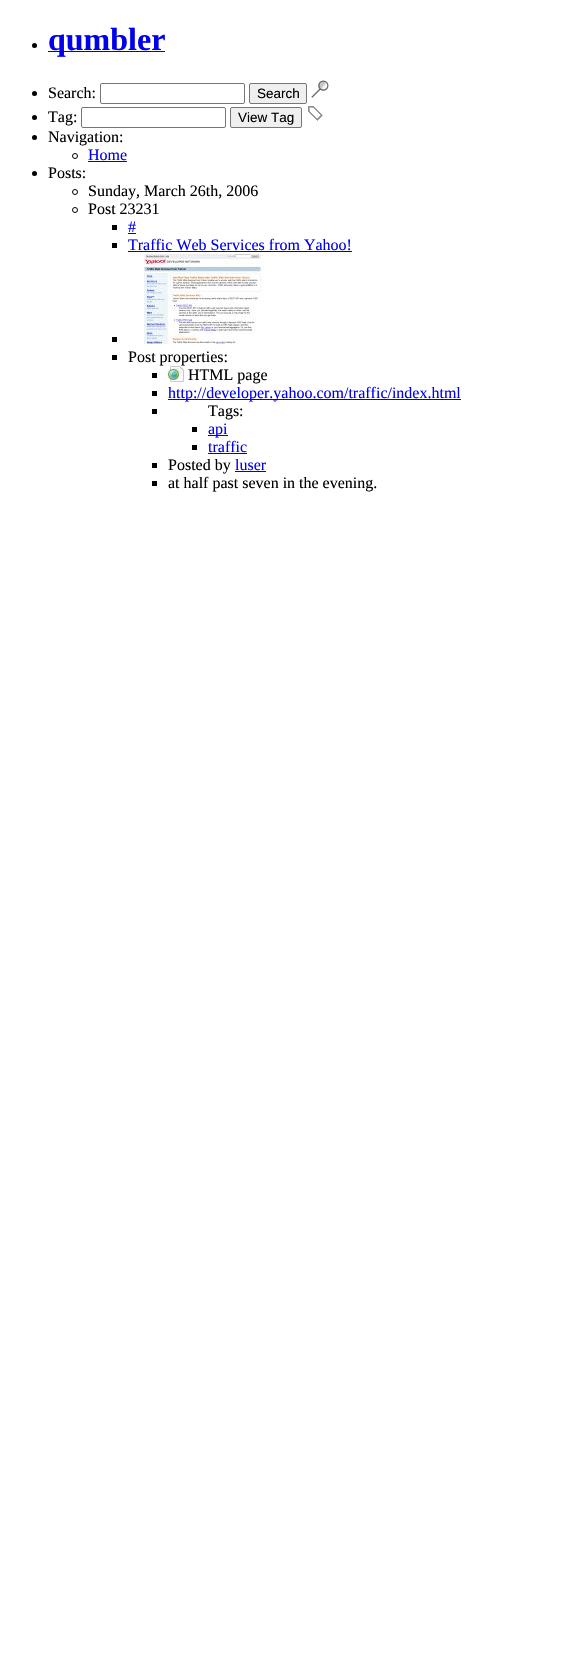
void draw(SkCanvas* canvas) {
    SkPaint paint;
    paint.setAntiAlias(true);
    auto face = [&](const char* family, int weight, float size, bool italic = false) {
        SkFontStyle style(weight, SkFontStyle::kNormal_Width,
            italic ? SkFontStyle::kItalic_Slant : SkFontStyle::kUpright_Slant);
        SkFont result(fontMgr->matchFamilyStyle(family, style), size);
        result.setSubpixel(true);
        return result;
    };
    auto write = [&](const char* s, float x, float y, const SkFont& font, SkColor color) {
        SkPaint ink(SkColor4f::FromColor(color));
        ink.setAntiAlias(true);
        canvas->drawString(s, x, y, font, ink);
    };
    auto block = [&](float x, float y, float w, float h, SkColor color) {
        SkPaint ink(SkColor4f::FromColor(color));
        ink.setAntiAlias(true);
        canvas->drawRect(SkRect::MakeXYWH(x, y, w, h), ink);
    };
    auto paste = [&](const char* path, float x, float y, float w, float h) {
        auto image = SkImages::DeferredFromEncodedData(SkData::MakeFromFileName(path));
        canvas->drawImageRect(image, SkRect::MakeXYWH(x, y, w, h), SkSamplingOptions());
    };
    canvas->clear(SK_ColorWHITE);
    paint.setColor(SK_ColorBLACK);
    canvas->drawCircle(34.5f, 45.5f, 2.5f, paint);
    block(48, 51, 117, 1, SkColorSetRGB(0, 0, 238));
    auto kFont1 = face("Liberation Serif", 700, 32);
    write("qumbler", 48, 50, kFont1, SkColorSetRGB(0, 0, 238));
    canvas->drawCircle(34.5f, 93.5f, 2.5f, paint);
    auto kFont2 = face("Liberation Serif", 400, 16);
    write("Search:", 48, 98, kFont2, SK_ColorBLACK);
    paint.setStyle(SkPaint::kStroke_Style);
    paint.setStrokeWidth(1);
    paint.setColor(SkColorSetRGB(118, 118, 118));
    canvas->drawRoundRect(SkRect::MakeXYWH(100.5f, 83.5f, 144, 20), 1.5f, 1.5f, paint);
    paint.setStyle(SkPaint::kFill_Style);
    paint.setColor(SkColorSetRGB(239, 239, 239));
    canvas->drawRoundRect(SkRect::MakeXYWH(249.5f, 83.5f, 57, 20), 1.5f, 1.5f, paint);
    paint.setStyle(SkPaint::kStroke_Style);
    paint.setColor(SkColorSetRGB(118, 118, 118));
    canvas->drawRoundRect(SkRect::MakeXYWH(249.5f, 83.5f, 57, 20), 1.5f, 1.5f, paint);
    auto kFont3 = face("Liberation Sans", 400, 13.5f);
    write("Search", 257, 98, kFont3, SK_ColorBLACK);
    paste("pic1.png", 311, 80, 18, 18);
    paint.setStyle(SkPaint::kFill_Style);
    paint.setColor(SK_ColorBLACK);
    canvas->drawCircle(34.5f, 117.5f, 2.5f, paint);
    write("Tag:", 48, 122, kFont2, SK_ColorBLACK);
    paint.setStyle(SkPaint::kStroke_Style);
    paint.setColor(SkColorSetRGB(118, 118, 118));
    canvas->drawRoundRect(SkRect::MakeXYWH(81.5f, 107.5f, 144, 20), 1.5f, 1.5f, paint);
    paint.setStyle(SkPaint::kFill_Style);
    paint.setColor(SkColorSetRGB(239, 239, 239));
    canvas->drawRoundRect(SkRect::MakeXYWH(230.5f, 107.5f, 71, 20), 1.5f, 1.5f, paint);
    paint.setStyle(SkPaint::kStroke_Style);
    paint.setColor(SkColorSetRGB(118, 118, 118));
    canvas->drawRoundRect(SkRect::MakeXYWH(230.5f, 107.5f, 71, 20), 1.5f, 1.5f, paint);
    write("View Tag", 238, 122, kFont3, SK_ColorBLACK);
    paste("pic2.png", 308, 106, 15, 15);
    paint.setStyle(SkPaint::kFill_Style);
    paint.setColor(SK_ColorBLACK);
    canvas->drawCircle(34.5f, 137.5f, 2.5f, paint);
    write("Navigation:", 48, 142, kFont2, SK_ColorBLACK);
    paint.setStyle(SkPaint::kStroke_Style);
    canvas->drawCircle(75, 156, 2.5f, paint);
    write("Home", 88, 160, kFont2, SkColorSetRGB(0, 0, 238));
    block(88, 161, 39, 1, SkColorSetRGB(0, 0, 238));
    paint.setStyle(SkPaint::kFill_Style);
    canvas->drawCircle(34.5f, 173.5f, 2.5f, paint);
    write("Posts:", 48, 178, kFont2, SK_ColorBLACK);
    paint.setStyle(SkPaint::kStroke_Style);
    canvas->drawCircle(75, 192, 2.5f, paint);
    write("Sunday, March 26th, 2006", 88, 196, kFont2, SK_ColorBLACK);
    canvas->drawCircle(75, 210, 2.5f, paint);
    write("Post 23231", 88, 214, kFont2, SK_ColorBLACK);
    block(112, 225, 5, 5, SK_ColorBLACK);
    write("#", 128, 232, kFont2, SkColorSetRGB(0, 0, 238));
    block(128, 233, 8, 1, SkColorSetRGB(0, 0, 238));
    block(112, 243, 5, 5, SK_ColorBLACK);
    write("Traffic Web Services from Yahoo!", 128, 250, kFont2, SkColorSetRGB(0, 0, 238));
    block(128, 251, 224, 1, SkColorSetRGB(0, 0, 238));
    block(112, 337, 5, 5, SK_ColorBLACK);
    paste("pic3.png", 144, 254, 120, 90);
    block(112, 355, 5, 5, SK_ColorBLACK);
    write("Post properties:", 128, 362, kFont2, SK_ColorBLACK);
    block(152, 373, 5, 5, SK_ColorBLACK);
    paste("pic4.png", 168, 366, 16, 16);
    write("HTML page", 188, 380, kFont2, SK_ColorBLACK);
    block(152, 391, 5, 5, SK_ColorBLACK);
    block(168, 399, 293, 1, SkColorSetRGB(0, 0, 238));
    write("http://developer.yahoo.com/traffic/index.html", 168, 398, kFont2, SkColorSetRGB(0, 0, 238));
    block(152, 409, 5, 5, SK_ColorBLACK);
    write("Tags:", 208, 416, kFont2, SK_ColorBLACK);
    block(192, 427, 5, 5, SK_ColorBLACK);
    block(208, 435, 20, 1, SkColorSetRGB(0, 0, 238));
    write("api", 208, 434, kFont2, SkColorSetRGB(0, 0, 238));
    block(192, 445, 5, 5, SK_ColorBLACK);
    write("traffic", 208, 452, kFont2, SkColorSetRGB(0, 0, 238));
    block(208, 453, 39, 1, SkColorSetRGB(0, 0, 238));
    block(152, 463, 5, 5, SK_ColorBLACK);
    write("Posted by", 168, 470, kFont2, SK_ColorBLACK);
    write("luser", 235, 470, kFont2, SkColorSetRGB(0, 0, 238));
    block(235, 471, 31, 1, SkColorSetRGB(0, 0, 238));
    block(152, 481, 5, 5, SK_ColorBLACK);
    write("at half past seven in the evening.", 168, 488, kFont2, SK_ColorBLACK);
}
